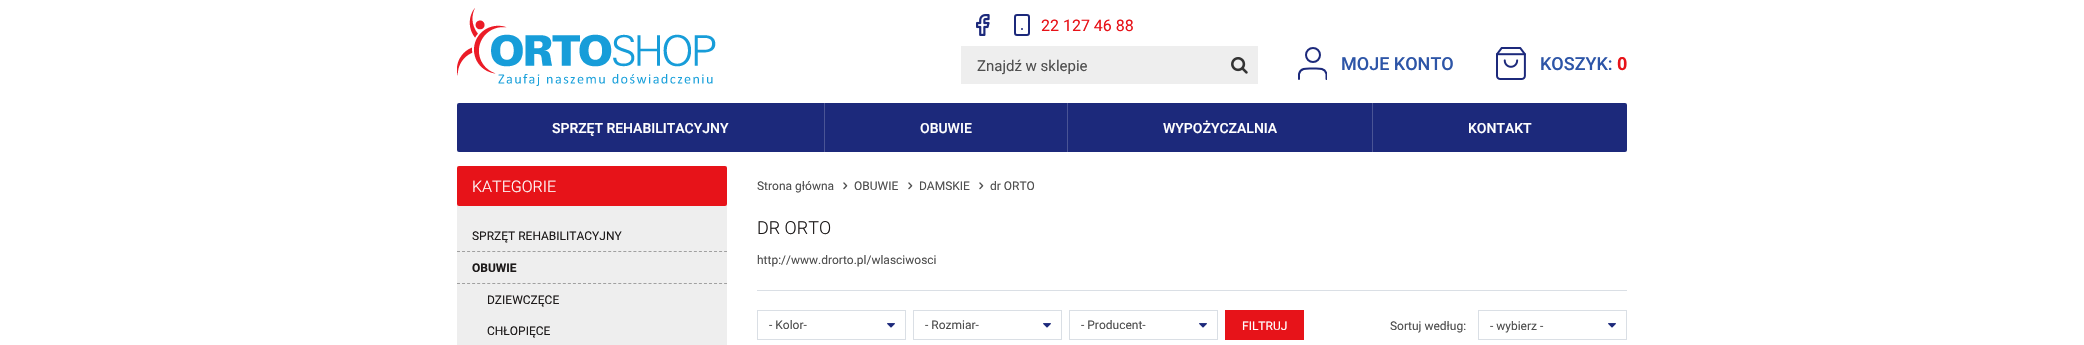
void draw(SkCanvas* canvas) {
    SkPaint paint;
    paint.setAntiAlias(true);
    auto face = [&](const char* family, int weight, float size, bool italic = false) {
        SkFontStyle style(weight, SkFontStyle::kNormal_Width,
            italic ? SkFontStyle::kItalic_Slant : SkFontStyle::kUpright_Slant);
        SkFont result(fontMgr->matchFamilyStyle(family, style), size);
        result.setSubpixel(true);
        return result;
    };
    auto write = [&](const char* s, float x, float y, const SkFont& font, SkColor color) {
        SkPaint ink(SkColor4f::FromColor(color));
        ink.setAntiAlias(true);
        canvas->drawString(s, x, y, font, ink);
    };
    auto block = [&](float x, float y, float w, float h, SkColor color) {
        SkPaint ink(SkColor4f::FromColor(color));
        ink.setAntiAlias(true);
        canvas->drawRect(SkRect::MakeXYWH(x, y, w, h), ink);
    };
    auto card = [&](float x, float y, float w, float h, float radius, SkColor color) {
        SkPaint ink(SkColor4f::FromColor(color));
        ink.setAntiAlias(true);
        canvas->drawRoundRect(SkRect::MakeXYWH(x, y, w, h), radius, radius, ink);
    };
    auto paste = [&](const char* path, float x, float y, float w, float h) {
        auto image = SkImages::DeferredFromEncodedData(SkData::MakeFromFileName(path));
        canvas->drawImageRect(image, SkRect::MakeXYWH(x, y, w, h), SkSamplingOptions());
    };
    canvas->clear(SK_ColorWHITE);
    paste("pic1.png", 457, 8, 259, 78);
    paste("pic2.png", 976, 14, 14, 22);
    paint.setColor(SkColorSetRGB(28, 41, 123));
    canvas->drawCircle(1022, 29, 1, paint);
    paint.setStyle(SkPaint::kStroke_Style);
    paint.setStrokeWidth(2);
    canvas->drawRoundRect(SkRect::MakeXYWH(1015, 15, 14, 20), 2, 2, paint);
    auto kFont1 = face("Roboto", 400, 16);
    write("22 127 46 88", 1041, 31, kFont1, SkColorSetRGB(231, 19, 25));
    block(961, 46, 297, 38, SkColorSetRGB(238, 238, 238));
    auto kFont2 = face("Roboto", 400, 15);
    write("Znajdź w sklepie", 977, 71, kFont2, SkColorSetRGB(78, 78, 78));
    paste("pic3.png", 1231, 57, 17, 17);
    canvas->save();
    canvas->clipRect(SkRect::MakeXYWH(1298, 47, 29, 33));
    paint.setStrokeCap(SkPaint::kRound_Cap);
    paint.setStrokeJoin(SkPaint::kRound_Join);
    canvas->drawPath(SkPathBuilder().moveTo(1326.5f, 79).lineTo(1326.5f, 74).cubicTo(1325, 67.5f, 1318, 68.5f, 1313, 68.5f).cubicTo(1307.5f, 68.5f, 1300.5f, 67.5f, 1299, 74).lineTo(1299, 79).detach(), paint);
    canvas->restore();
    paint.setStrokeCap(SkPaint::kButt_Cap);
    paint.setStrokeJoin(SkPaint::kMiter_Join);
    canvas->drawCircle(1313, 55, 7, paint);
    auto kFont3 = face("Roboto", 500, 18);
    write("MOJE KONTO", 1341, 70, kFont3, SkColorSetRGB(45, 85, 167));
    paste("pic4.png", 1496, 47, 30, 33);
    write("KOSZYK:", 1540, 70, kFont3, SkColorSetRGB(45, 85, 167));
    auto kFont4 = face("Roboto", 700, 18);
    write("0", 1617, 70, kFont4, SkColorSetRGB(231, 19, 25));
    card(457, 103, 1170, 49, 2, SkColorSetRGB(28, 41, 123));
    block(824, 103, 1, 49, SkColorSetRGB(74, 84, 149));
    auto kFont5 = face("Roboto", 500, 14);
    write("SPRZĘT REHABILITACYJNY", 552, 133, kFont5, SK_ColorWHITE);
    block(1067, 103, 1, 49, SkColorSetRGB(74, 84, 149));
    write("OBUWIE", 920, 133, kFont5, SK_ColorWHITE);
    block(1372, 103, 1, 49, SkColorSetRGB(74, 84, 149));
    write("WYPOŻYCZALNIA", 1163, 133, kFont5, SK_ColorWHITE);
    write("KONTAKT", 1468, 133, kFont5, SK_ColorWHITE);
    card(457, 166, 270, 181, 2, SkColorSetRGB(238, 238, 238));
    card(457, 166, 270, 40, 2, SkColorSetRGB(231, 19, 25));
    auto kFont6 = face("Roboto", 300, 16);
    write("KATEGORIE", 472, 192, kFont6, SK_ColorWHITE);
    paint.setStrokeWidth(1);
    paint.setColor(SkColorSetRGB(160, 160, 160));
    paint.setPathEffect(SkDashPathEffect::Make({{3, 2.04f}}, 0));
    canvas->drawPath(SkPathBuilder().moveTo(457, 251.5f).lineTo(727, 251.5f).detach(), paint);
    paint.setPathEffect(nullptr);
    auto kFont7 = face("Roboto", 400, 12);
    write("SPRZĘT REHABILITACYJNY", 472, 240, kFont7, SkColorSetRGB(29, 26, 26));
    paint.setPathEffect(SkDashPathEffect::Make({{3, 2.04f}}, 0));
    canvas->drawPath(SkPathBuilder().moveTo(457, 283.5f).lineTo(727, 283.5f).detach(), paint);
    paint.setPathEffect(nullptr);
    auto kFont8 = face("Roboto", 700, 12);
    write("OBUWIE", 472, 272, kFont8, SkColorSetRGB(29, 26, 26));
    write("DZIEWCZĘCE", 487, 304, kFont7, SkColorSetRGB(29, 26, 26));
    write("CHŁOPIĘCE", 487, 335, kFont7, SkColorSetRGB(29, 26, 26));
    write("Strona główna", 757, 190, kFont7, SkColorSetRGB(78, 78, 78));
    paste("pic5.png", 843, 182, 5, 8);
    write("OBUWIE", 854, 190, kFont7, SkColorSetRGB(78, 78, 78));
    paste("pic5.png", 908, 182, 5, 8);
    write("DAMSKIE", 919, 190, kFont7, SkColorSetRGB(78, 78, 78));
    paste("pic5.png", 979, 182, 5, 8);
    write("dr ORTO", 990, 190, kFont7, SkColorSetRGB(78, 78, 78));
    block(757, 290, 870, 1, SkColorSetRGB(218, 223, 229));
    auto kFont9 = face("Roboto", 300, 18);
    write("DR ORTO", 757, 234, kFont9, SkColorSetRGB(29, 26, 26));
    write("http://www.drorto.pl/wlasciwosci", 757, 264, kFont7, SkColorSetRGB(78, 78, 78));
    paint.setColor(SkColorSetRGB(218, 223, 229));
    canvas->drawRect(SkRect::MakeXYWH(757.5f, 310.5f, 148, 29), paint);
    write("- Kolor-", 769, 329, kFont7, SkColorSetRGB(78, 78, 78));
    paste("pic6.png", 887, 323, 8, 5);
    canvas->drawRect(SkRect::MakeXYWH(913.5f, 310.5f, 148, 29), paint);
    write("- Rozmiar-", 925, 329, kFont7, SkColorSetRGB(78, 78, 78));
    paste("pic6.png", 1043, 323, 8, 5);
    canvas->drawRect(SkRect::MakeXYWH(1069.5f, 310.5f, 148, 29), paint);
    write("- Producent-", 1081, 329, kFont7, SkColorSetRGB(78, 78, 78));
    paste("pic6.png", 1199, 323, 8, 5);
    block(1225, 310, 79, 30, SkColorSetRGB(231, 19, 25));
    write("FILTRUJ", 1242, 330, kFont7, SK_ColorWHITE);
    write("Sortuj według:", 1390, 330, kFont7, SkColorSetRGB(78, 78, 78));
    canvas->drawRect(SkRect::MakeXYWH(1478.5f, 310.5f, 148, 29), paint);
    write("- wybierz -", 1490, 330, kFont7, SkColorSetRGB(78, 78, 78));
    paste("pic6.png", 1608, 323, 8, 5);
}
